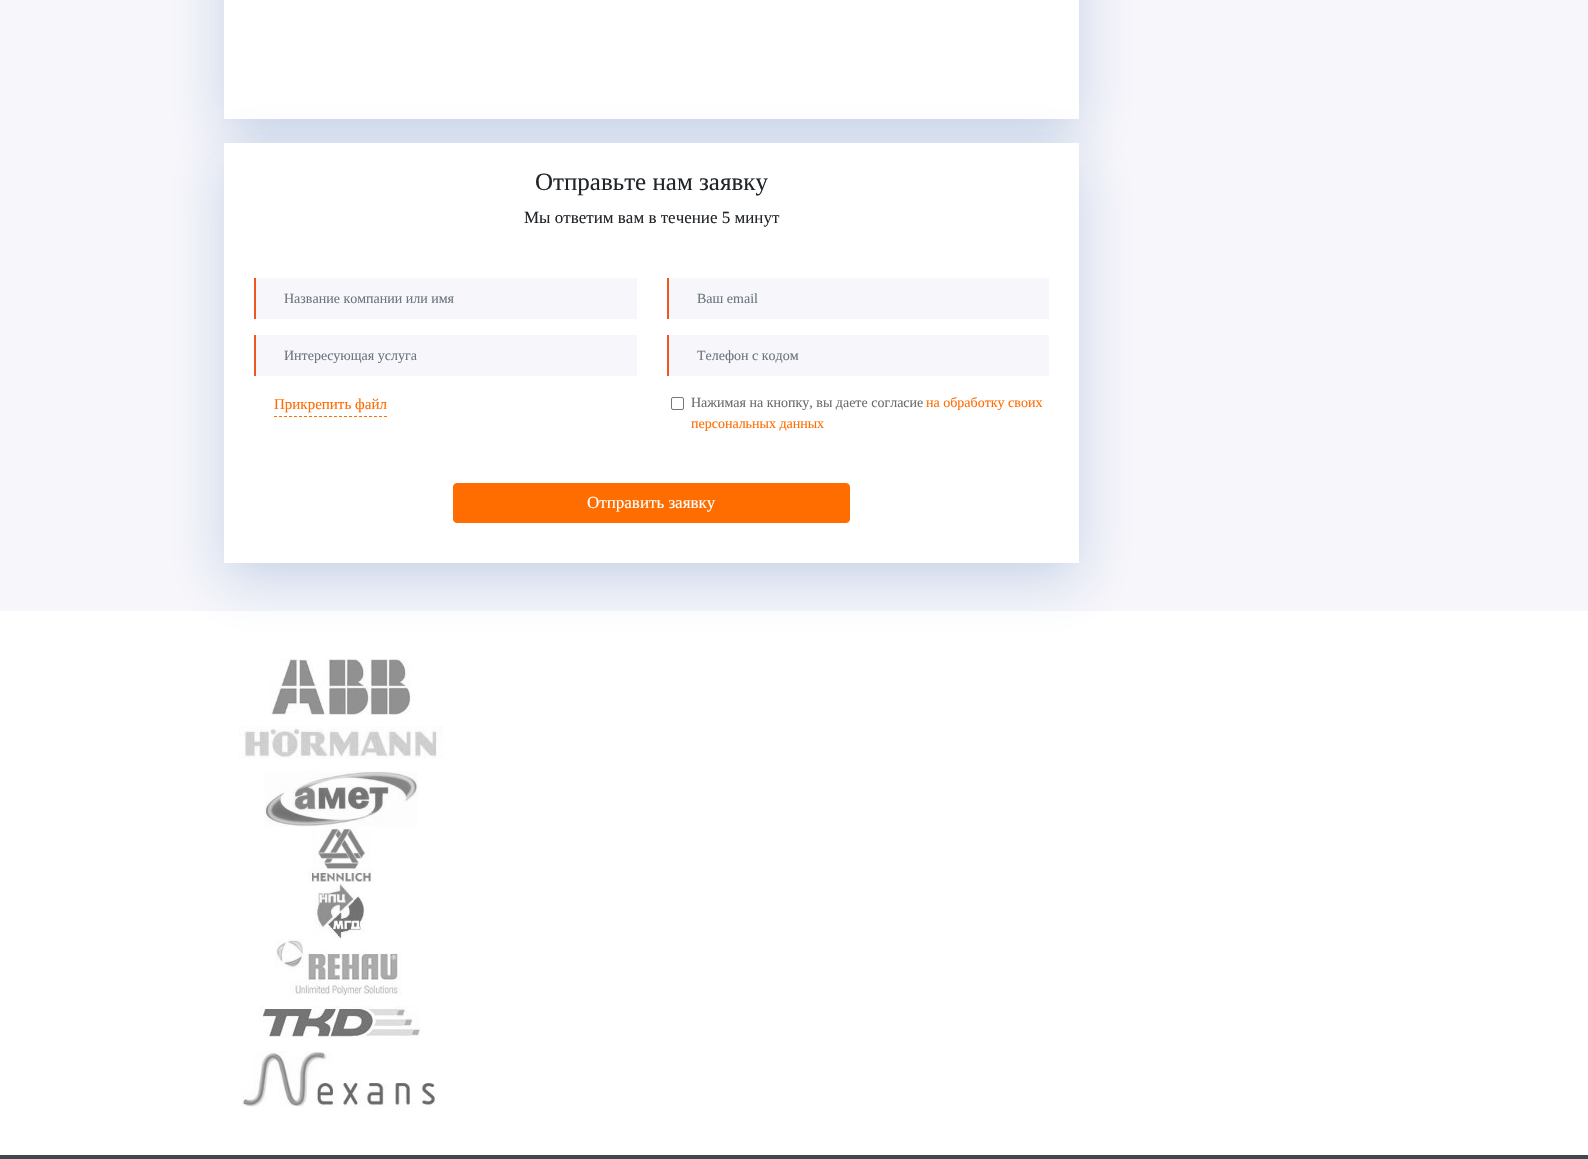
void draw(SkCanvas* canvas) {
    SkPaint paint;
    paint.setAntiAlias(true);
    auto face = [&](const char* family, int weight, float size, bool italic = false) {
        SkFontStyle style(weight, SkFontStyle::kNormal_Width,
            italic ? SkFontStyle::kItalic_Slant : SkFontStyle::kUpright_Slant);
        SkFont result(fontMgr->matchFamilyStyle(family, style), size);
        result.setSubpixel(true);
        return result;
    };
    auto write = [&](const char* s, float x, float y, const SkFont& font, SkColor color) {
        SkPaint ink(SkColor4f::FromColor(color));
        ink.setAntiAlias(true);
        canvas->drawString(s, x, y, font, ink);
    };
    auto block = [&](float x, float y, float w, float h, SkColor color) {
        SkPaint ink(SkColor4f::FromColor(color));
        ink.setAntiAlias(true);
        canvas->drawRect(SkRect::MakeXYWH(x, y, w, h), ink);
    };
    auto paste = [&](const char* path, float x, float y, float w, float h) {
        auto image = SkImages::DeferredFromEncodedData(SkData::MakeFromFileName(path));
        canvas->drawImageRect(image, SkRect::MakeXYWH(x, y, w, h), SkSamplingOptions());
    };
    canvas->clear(SkColorSetRGB(246, 246, 251));
    paint.setColor(SkColorSetARGB(56, 28, 84, 160));
    paint.setMaskFilter(SkMaskFilter::MakeBlur(kNormal_SkBlurStyle, 25.5f));
    canvas->drawRect(SkRect::MakeXYWH(224, -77, 855, 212), paint);
    paint.setMaskFilter(nullptr);
    block(224, 0, 855, 119, SK_ColorWHITE);
    block(0, 611, 1588, 544, SK_ColorWHITE);
    paint.setMaskFilter(SkMaskFilter::MakeBlur(kNormal_SkBlurStyle, 25.5f));
    canvas->drawRect(SkRect::MakeXYWH(224, 159, 855, 420), paint);
    paint.setMaskFilter(nullptr);
    block(224, 143, 855, 420, SK_ColorWHITE);
    auto kFont1 = face("Liberation Serif", 400, 25);
    write("Отправьте нам заявку", 535, 190, kFont1, SkColorSetRGB(33, 37, 41));
    auto kFont2 = face("Liberation Serif", 400, 17);
    write("Мы ответим вам в течение 5 минут", 524, 223, kFont2, SkColorSetRGB(33, 37, 41));
    block(256, 278, 381, 41, SkColorSetRGB(246, 246, 251));
    block(254, 278, 2, 41, SkColorSetRGB(242, 86, 31));
    auto kFont3 = face("Liberation Serif", 400, 14);
    write("Название компании или имя", 284, 303, kFont3, SkColorSetRGB(108, 117, 125));
    block(256, 335, 381, 41, SkColorSetRGB(246, 246, 251));
    block(254, 335, 2, 41, SkColorSetRGB(242, 86, 31));
    write("Интересующая услуга", 284, 360, kFont3, SkColorSetRGB(108, 117, 125));
    paint.setStyle(SkPaint::kStroke_Style);
    paint.setStrokeWidth(1);
    paint.setColor(SkColorSetRGB(255, 108, 0));
    paint.setPathEffect(SkDashPathEffect::Make({{3, 2}}, 0));
    canvas->drawPath(SkPathBuilder().moveTo(274, 416.5f).lineTo(387, 416.5f).detach(), paint);
    paint.setPathEffect(nullptr);
    auto kFont4 = face("Liberation Serif", 400, 15);
    write("Прикрепить файл", 274, 409, kFont4, SkColorSetRGB(255, 108, 0));
    block(669, 278, 380, 41, SkColorSetRGB(246, 246, 251));
    block(667, 278, 2, 41, SkColorSetRGB(242, 86, 31));
    write("Ваш email", 697, 303, kFont3, SkColorSetRGB(108, 117, 125));
    block(669, 335, 380, 41, SkColorSetRGB(246, 246, 251));
    block(667, 335, 2, 41, SkColorSetRGB(242, 86, 31));
    write("Телефон с кодом", 697, 360, kFont3, SkColorSetRGB(108, 117, 125));
    paint.setColor(SkColorSetRGB(118, 118, 118));
    canvas->drawRoundRect(SkRect::MakeXYWH(671.5f, 397.5f, 12, 12), 1.5f, 1.5f, paint);
    write("Нажимая на кнопку, вы даете согласие", 691, 407, kFont3, SkColorSetRGB(107, 107, 107));
    write("на обработку своих", 926, 407, kFont3, SkColorSetRGB(255, 108, 0));
    write("персональных данных", 691, 428, kFont3, SkColorSetRGB(255, 108, 0));
    paint.setStyle(SkPaint::kFill_Style);
    paint.setColor(SkColorSetRGB(255, 108, 0));
    canvas->drawRoundRect(SkRect::MakeXYWH(453.5f, 483.5f, 396, 39), 3.5f, 3.5f, paint);
    paint.setStyle(SkPaint::kStroke_Style);
    canvas->drawRoundRect(SkRect::MakeXYWH(453.5f, 483.5f, 396, 39), 3.5f, 3.5f, paint);
    write("Отправить заявку", 587, 508, kFont2, SK_ColorWHITE);
    paste("pic1.png", 270, 659, 141, 56);
    paste("pic2.png", 239, 726, 204, 33);
    paste("pic3.png", 264, 771, 154, 56);
    paste("pic4.png", 308, 827, 66, 56);
    paste("pic5.png", 314, 883, 51, 56);
    paste("pic6.png", 275, 939, 127, 56);
    paste("pic7.png", 259, 1006, 162, 32);
    paste("pic8.png", 241, 1051, 198, 56);
    block(0, 1155, 1588, 4, SkColorSetRGB(64, 71, 79));
}
